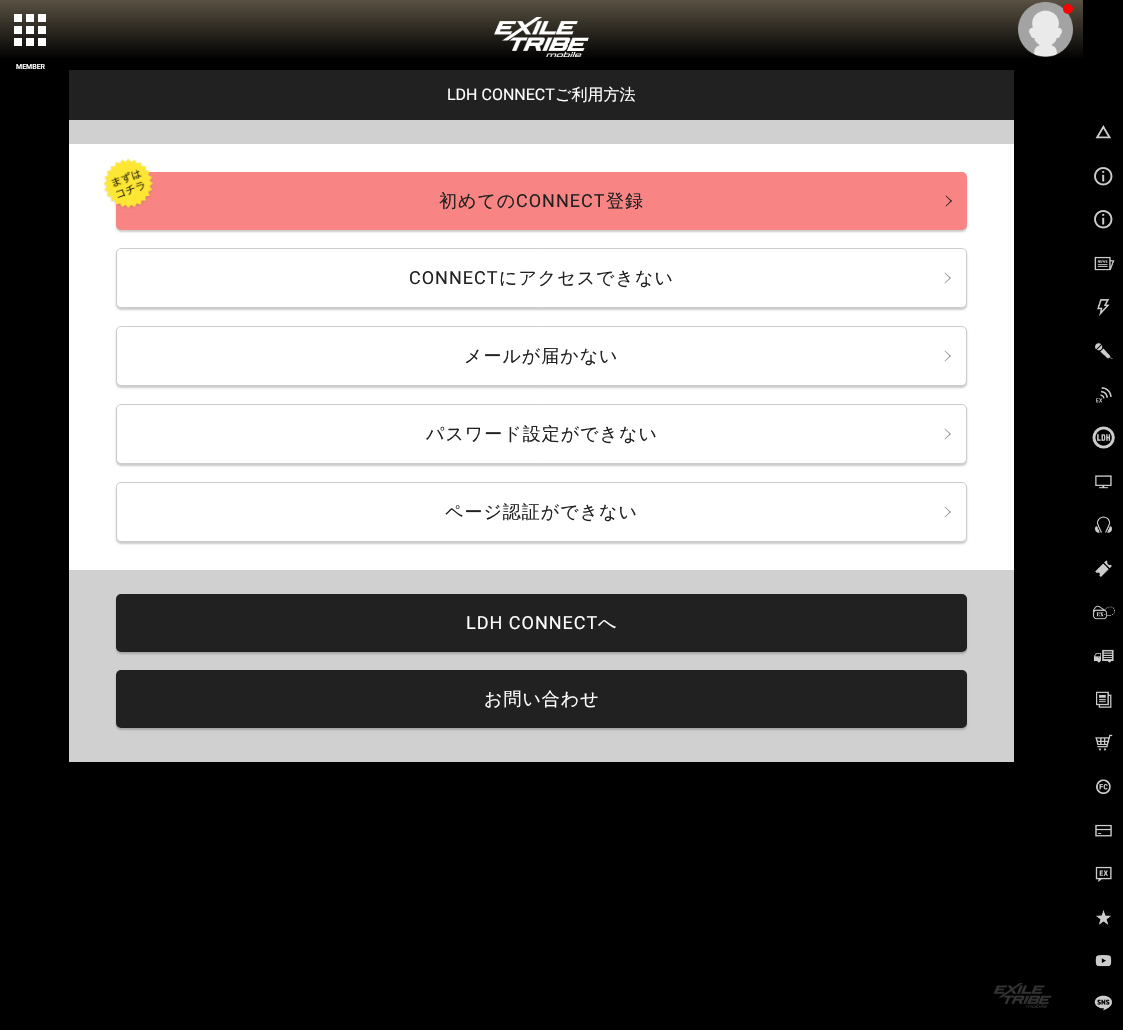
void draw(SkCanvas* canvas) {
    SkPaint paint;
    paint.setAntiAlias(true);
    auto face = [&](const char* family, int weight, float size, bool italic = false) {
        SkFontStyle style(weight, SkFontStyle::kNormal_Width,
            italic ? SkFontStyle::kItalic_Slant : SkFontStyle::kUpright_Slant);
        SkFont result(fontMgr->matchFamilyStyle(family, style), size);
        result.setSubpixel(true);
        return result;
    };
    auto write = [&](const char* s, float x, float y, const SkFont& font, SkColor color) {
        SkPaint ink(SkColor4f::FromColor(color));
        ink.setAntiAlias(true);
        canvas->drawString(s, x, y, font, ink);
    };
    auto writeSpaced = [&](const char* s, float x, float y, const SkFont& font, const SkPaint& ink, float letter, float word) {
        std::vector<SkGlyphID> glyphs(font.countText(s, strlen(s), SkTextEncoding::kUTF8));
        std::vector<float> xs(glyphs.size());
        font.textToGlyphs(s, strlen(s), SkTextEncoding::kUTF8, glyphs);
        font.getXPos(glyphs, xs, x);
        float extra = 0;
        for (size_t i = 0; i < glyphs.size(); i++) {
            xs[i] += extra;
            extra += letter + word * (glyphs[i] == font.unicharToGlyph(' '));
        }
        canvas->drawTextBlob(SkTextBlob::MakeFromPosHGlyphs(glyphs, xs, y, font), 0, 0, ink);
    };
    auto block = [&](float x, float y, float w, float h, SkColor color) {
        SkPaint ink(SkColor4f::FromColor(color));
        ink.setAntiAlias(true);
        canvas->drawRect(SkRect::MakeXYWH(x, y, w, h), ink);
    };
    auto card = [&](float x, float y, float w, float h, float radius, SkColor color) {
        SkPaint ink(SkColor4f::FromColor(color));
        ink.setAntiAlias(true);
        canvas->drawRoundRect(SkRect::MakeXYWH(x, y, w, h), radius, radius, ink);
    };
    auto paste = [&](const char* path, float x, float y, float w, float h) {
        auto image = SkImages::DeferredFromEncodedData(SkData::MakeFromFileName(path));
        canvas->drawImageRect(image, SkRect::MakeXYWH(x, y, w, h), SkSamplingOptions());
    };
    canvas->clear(SK_ColorBLACK);
    {
        const SkColor colors[] = {SkColorSetRGB(89, 81, 66), SK_ColorBLACK};
        const float stops[] = {0, 1};
        const SkPoint ends[] = {{562, 0}, {562, 60}};
        paint.setShader(SkGradientShader::MakeLinear(ends, colors, stops, 2, SkTileMode::kClamp));
        paint.setAlpha(255);
    }
    canvas->drawRect(SkRect::MakeXYWH(0, 0, 1083, 58), paint);
    paste("pic1.png", 494, 17, 95, 40);
    paste("pic2.png", 1018, 2, 55, 55);
    paint.setShader(nullptr);
    paint.setColor(SkColorSetRGB(255, 0, 0));
    canvas->drawCircle(1068, 9, 5, paint);
    block(38, 38, 8, 8, SK_ColorWHITE);
    block(26, 38, 8, 8, SK_ColorWHITE);
    block(14, 38, 8, 8, SK_ColorWHITE);
    block(38, 26, 8, 8, SK_ColorWHITE);
    block(14, 26, 8, 8, SK_ColorWHITE);
    block(38, 14, 8, 8, SK_ColorWHITE);
    block(26, 14, 8, 8, SK_ColorWHITE);
    block(14, 14, 8, 8, SK_ColorWHITE);
    block(26, 26, 8, 8, SK_ColorWHITE);
    auto kFont1 = face("Roboto", 600, 7);
    write("MEMBER", 16, 69, kFont1, SK_ColorWHITE);
    block(69, 120, 945, 642, SkColorSetRGB(208, 208, 208));
    block(69, 70, 945, 50, SkColorSetRGB(33, 33, 33));
    auto kFont2 = face("Roboto", 400, 16);
    write("LDH CONNECT", 447, 100, kFont2, SK_ColorWHITE);
    auto kFont3 = face("WenQuanYi Zen Hei", 500, 16);
    write("ご利用方法", 555, 100, kFont3, SK_ColorWHITE);
    block(69, 144, 945, 426, SK_ColorWHITE);
    paint.setColor(SkColorSetARGB(51, 0, 0, 0));
    paint.setMaskFilter(SkMaskFilter::MakeBlur(kNormal_SkBlurStyle, 1));
    canvas->drawRoundRect(SkRect::MakeXYWH(116, 174, 851, 58), 5, 5, paint);
    paint.setMaskFilter(nullptr);
    card(116, 172, 851, 58, 5, SkColorSetRGB(248, 132, 132));
    paste("pic3.png", 103, 158, 51, 51);
    auto kFont4 = face("WenQuanYi Zen Hei", 500, 18);
    paint.setColor(SkColorSetRGB(33, 33, 33));
    writeSpaced("初めての", 439, 207, kFont4, paint, 1, 0);
    auto kFont5 = face("Roboto", 400, 18);
    writeSpaced("CONNECT", 516, 207, kFont5, paint, 1, 0);
    writeSpaced("登録", 606, 207, kFont4, paint, 1, 0);
    canvas->drawPath(SkPathBuilder().moveTo(946, 195.5f).lineTo(952, 201).lineTo(951, 201.5f).lineTo(945.5f, 196).close().detach(), paint);
    canvas->drawPath(SkPathBuilder().moveTo(951, 200.5f).lineTo(952, 201).lineTo(946, 206.5f).lineTo(945.5f, 206).close().detach(), paint);
    paint.setColor(SkColorSetARGB(51, 0, 0, 0));
    paint.setMaskFilter(SkMaskFilter::MakeBlur(kNormal_SkBlurStyle, 1));
    canvas->drawRoundRect(SkRect::MakeXYWH(116, 250, 851, 60), 5, 5, paint);
    paint.setMaskFilter(nullptr);
    paint.setColor(SK_ColorWHITE);
    canvas->drawRoundRect(SkRect::MakeXYWH(116.5f, 248.5f, 850, 59), 4.5f, 4.5f, paint);
    paint.setStyle(SkPaint::kStroke_Style);
    paint.setStrokeWidth(1);
    paint.setColor(SkColorSetRGB(201, 203, 204));
    canvas->drawRoundRect(SkRect::MakeXYWH(116.5f, 248.5f, 850, 59), 4.5f, 4.5f, paint);
    paint.setStyle(SkPaint::kFill_Style);
    paint.setColor(SkColorSetRGB(33, 33, 33));
    writeSpaced("CONNECT", 409, 284, kFont5, paint, 1, 0);
    writeSpaced("にアクセスできない", 499, 284, kFont4, paint, 1, 0);
    paint.setColor(SkColorSetRGB(149, 152, 154));
    canvas->drawPath(SkPathBuilder().moveTo(945, 272.5f).lineTo(951, 278).lineTo(950, 278.5f).lineTo(944.5f, 273).close().detach(), paint);
    canvas->drawPath(SkPathBuilder().moveTo(950, 277.5f).lineTo(951, 278).lineTo(945, 283.5f).lineTo(944.5f, 283).close().detach(), paint);
    paint.setColor(SkColorSetARGB(51, 0, 0, 0));
    paint.setMaskFilter(SkMaskFilter::MakeBlur(kNormal_SkBlurStyle, 1));
    canvas->drawRoundRect(SkRect::MakeXYWH(116, 328, 851, 60), 5, 5, paint);
    paint.setMaskFilter(nullptr);
    paint.setColor(SK_ColorWHITE);
    canvas->drawRoundRect(SkRect::MakeXYWH(116.5f, 326.5f, 850, 59), 4.5f, 4.5f, paint);
    paint.setStyle(SkPaint::kStroke_Style);
    paint.setColor(SkColorSetRGB(201, 203, 204));
    canvas->drawRoundRect(SkRect::MakeXYWH(116.5f, 326.5f, 850, 59), 4.5f, 4.5f, paint);
    paint.setStyle(SkPaint::kFill_Style);
    paint.setColor(SkColorSetRGB(33, 33, 33));
    writeSpaced("メールが届かない", 464, 362, kFont4, paint, 1, 0);
    paint.setColor(SkColorSetRGB(149, 152, 154));
    canvas->drawPath(SkPathBuilder().moveTo(945, 350.5f).lineTo(951, 356).lineTo(950, 356.5f).lineTo(944.5f, 351).close().detach(), paint);
    canvas->drawPath(SkPathBuilder().moveTo(950, 355.5f).lineTo(951, 356).lineTo(945, 361.5f).lineTo(944.5f, 361).close().detach(), paint);
    paint.setColor(SkColorSetARGB(51, 0, 0, 0));
    paint.setMaskFilter(SkMaskFilter::MakeBlur(kNormal_SkBlurStyle, 1));
    canvas->drawRoundRect(SkRect::MakeXYWH(116, 406, 851, 60), 5, 5, paint);
    paint.setMaskFilter(nullptr);
    paint.setColor(SK_ColorWHITE);
    canvas->drawRoundRect(SkRect::MakeXYWH(116.5f, 404.5f, 850, 59), 4.5f, 4.5f, paint);
    paint.setStyle(SkPaint::kStroke_Style);
    paint.setColor(SkColorSetRGB(201, 203, 204));
    canvas->drawRoundRect(SkRect::MakeXYWH(116.5f, 404.5f, 850, 59), 4.5f, 4.5f, paint);
    paint.setStyle(SkPaint::kFill_Style);
    paint.setColor(SkColorSetRGB(33, 33, 33));
    writeSpaced("パスワード設定ができない", 426, 440, kFont4, paint, 1, 0);
    paint.setColor(SkColorSetRGB(149, 152, 154));
    canvas->drawPath(SkPathBuilder().moveTo(945, 428.5f).lineTo(951, 434).lineTo(950, 434.5f).lineTo(944.5f, 429).close().detach(), paint);
    canvas->drawPath(SkPathBuilder().moveTo(950, 433.5f).lineTo(951, 434).lineTo(945, 439.5f).lineTo(944.5f, 439).close().detach(), paint);
    paint.setColor(SkColorSetARGB(51, 0, 0, 0));
    paint.setMaskFilter(SkMaskFilter::MakeBlur(kNormal_SkBlurStyle, 1));
    canvas->drawRoundRect(SkRect::MakeXYWH(116, 484, 851, 60), 5, 5, paint);
    paint.setMaskFilter(nullptr);
    paint.setColor(SK_ColorWHITE);
    canvas->drawRoundRect(SkRect::MakeXYWH(116.5f, 482.5f, 850, 59), 4.5f, 4.5f, paint);
    paint.setStyle(SkPaint::kStroke_Style);
    paint.setColor(SkColorSetRGB(201, 203, 204));
    canvas->drawRoundRect(SkRect::MakeXYWH(116.5f, 482.5f, 850, 59), 4.5f, 4.5f, paint);
    paint.setStyle(SkPaint::kFill_Style);
    paint.setColor(SkColorSetRGB(33, 33, 33));
    writeSpaced("ページ認証ができない", 445, 518, kFont4, paint, 1, 0);
    paint.setColor(SkColorSetRGB(149, 152, 154));
    canvas->drawPath(SkPathBuilder().moveTo(945, 506.5f).lineTo(951, 512).lineTo(950, 512.5f).lineTo(944.5f, 507).close().detach(), paint);
    canvas->drawPath(SkPathBuilder().moveTo(950, 511.5f).lineTo(951, 512).lineTo(945, 517.5f).lineTo(944.5f, 517).close().detach(), paint);
    paint.setColor(SkColorSetARGB(51, 0, 0, 0));
    paint.setMaskFilter(SkMaskFilter::MakeBlur(kNormal_SkBlurStyle, 1));
    canvas->drawRoundRect(SkRect::MakeXYWH(116, 596, 851, 58), 5, 5, paint);
    paint.setMaskFilter(nullptr);
    card(116, 594, 851, 58, 5, SkColorSetRGB(33, 33, 33));
    paint.setColor(SK_ColorWHITE);
    writeSpaced("LDH CONNECT", 466, 629, kFont5, paint, 1, 0);
    writeSpaced("へ", 598, 629, kFont4, paint, 1, 0);
    paint.setColor(SkColorSetARGB(51, 0, 0, 0));
    paint.setMaskFilter(SkMaskFilter::MakeBlur(kNormal_SkBlurStyle, 1));
    canvas->drawRoundRect(SkRect::MakeXYWH(116, 672, 851, 58), 5, 5, paint);
    paint.setMaskFilter(nullptr);
    card(116, 670, 851, 58, 5, SkColorSetRGB(33, 33, 33));
    paint.setColor(SK_ColorWHITE);
    writeSpaced("お問い合わせ", 484, 705, kFont4, paint, 1, 0);
    paste("pic4.png", 993, 983, 59, 25);
    paste("pic5.png", 1095, 125, 16, 14);
    paste("pic6.png", 1094, 167, 19, 19);
    paste("pic6.png", 1094, 210, 19, 19);
    paste("pic7.png", 1094, 256, 21, 15);
    paste("pic8.png", 1097, 299, 13, 17);
    paste("pic9.png", 1095, 343, 18, 16);
    paste("pic10.png", 1096, 387, 16, 16);
    paste("pic11.png", 1092, 426, 23, 23);
    paste("pic12.png", 1095, 475, 17, 14);
    paste("pic13.png", 1094, 516, 18, 17);
    paste("pic14.png", 1095, 560, 17, 17);
    paste("pic15.png", 1092, 605, 23, 15);
    paste("pic16.png", 1094, 649, 20, 14);
    paste("pic17.png", 1096, 691, 16, 17);
    paste("pic18.png", 1095, 734, 18, 17);
    paste("pic19.png", 1096, 779, 15, 15);
    paste("pic20.png", 1095, 824, 17, 13);
    paste("pic21.png", 1095, 866, 17, 16);
    paste("pic22.png", 1096, 910, 15, 15);
    paste("pic23.png", 1095, 955, 17, 12);
    paste("pic24.png", 1094, 995, 18, 16);
}
